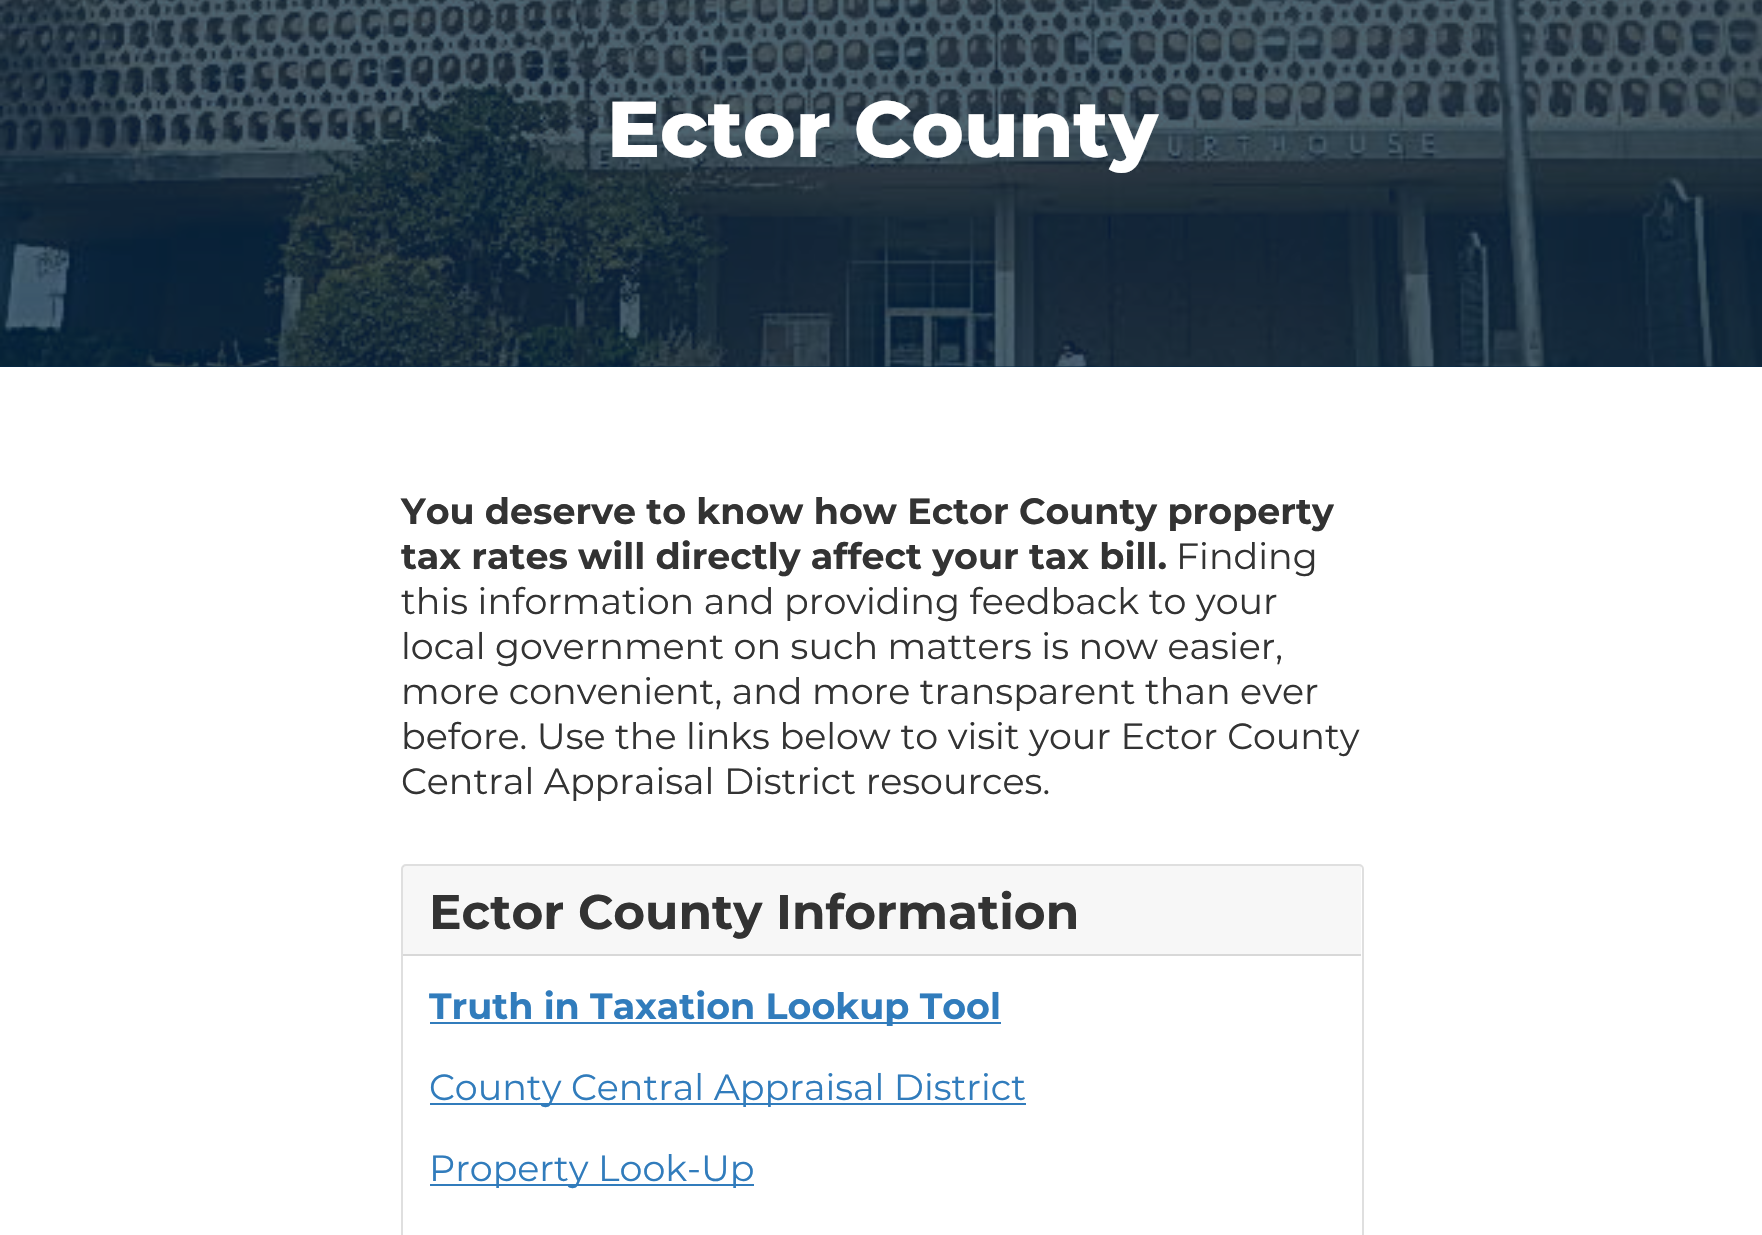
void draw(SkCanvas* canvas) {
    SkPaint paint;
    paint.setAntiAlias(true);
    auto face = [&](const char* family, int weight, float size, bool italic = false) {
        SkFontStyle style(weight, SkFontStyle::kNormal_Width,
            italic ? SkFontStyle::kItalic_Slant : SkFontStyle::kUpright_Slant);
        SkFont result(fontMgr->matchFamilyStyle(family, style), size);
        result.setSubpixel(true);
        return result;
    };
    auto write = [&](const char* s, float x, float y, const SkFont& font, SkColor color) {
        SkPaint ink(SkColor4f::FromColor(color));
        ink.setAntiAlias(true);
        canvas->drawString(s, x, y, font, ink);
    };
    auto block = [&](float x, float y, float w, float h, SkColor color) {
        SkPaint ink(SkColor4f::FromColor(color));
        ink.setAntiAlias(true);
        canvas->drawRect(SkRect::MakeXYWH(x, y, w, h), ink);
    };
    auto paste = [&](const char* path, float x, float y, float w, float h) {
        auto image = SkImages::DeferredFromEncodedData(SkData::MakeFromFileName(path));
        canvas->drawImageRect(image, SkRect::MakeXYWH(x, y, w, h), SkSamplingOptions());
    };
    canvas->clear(SkColorSetRGB(0, 42, 78));
    paste("pic1.png", 0, 0, 1762, 367);
    auto kFont1 = face("Montserrat", 800, 79);
    write("Ector County", 607, 157, kFont1, SK_ColorWHITE);
    block(0, 367, 1762, 868, SK_ColorWHITE);
    auto kFont2 = face("Montserrat", 700, 36.45f);
    write("You deserve to know how Ector County property", 401, 524, kFont2, SkColorSetRGB(51, 51, 51));
    write("tax rates will directly affect your tax bill.", 401, 569, kFont2, SkColorSetRGB(51, 51, 51));
    auto kFont3 = face("Montserrat", 400, 36.45f);
    write("Finding", 1176, 569, kFont3, SkColorSetRGB(51, 51, 51));
    write("this information and providing feedback to your", 401, 614, kFont3, SkColorSetRGB(51, 51, 51));
    write("local government on such matters is now easier,", 401, 659, kFont3, SkColorSetRGB(51, 51, 51));
    write("more convenient, and more transparent than ever", 401, 704, kFont3, SkColorSetRGB(51, 51, 51));
    write("before. Use the links below to visit your Ector County", 401, 749, kFont3, SkColorSetRGB(51, 51, 51));
    write("Central Appraisal District resources.", 401, 794, kFont3, SkColorSetRGB(51, 51, 51));
    paint.setStyle(SkPaint::kStroke_Style);
    paint.setStrokeWidth(2);
    paint.setColor(SkColorSetRGB(223, 223, 223));
    canvas->drawRoundRect(SkRect::MakeXYWH(402, 865, 961, 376), 4, 4, paint);
    block(403, 866, 958, 88, SkColorSetARGB(8, 0, 0, 0));
    block(403, 954, 958, 2, SkColorSetRGB(216, 216, 216));
    auto kFont4 = face("Montserrat", 700, 48.6f);
    write("Ector County Information", 429, 929, kFont4, SkColorSetRGB(51, 51, 51));
    block(430, 1022, 571, 2, SkColorSetRGB(49, 124, 188));
    write("Truth in Taxation Lookup Tool", 429, 1019, kFont2, SkColorSetRGB(49, 124, 188));
    block(430, 1103, 596, 2, SkColorSetRGB(49, 124, 188));
    write("County Central Appraisal District", 429, 1100, kFont3, SkColorSetRGB(49, 124, 188));
    block(430, 1184, 324, 2, SkColorSetRGB(49, 124, 188));
    write("Property Look-Up", 429, 1181, kFont3, SkColorSetRGB(49, 124, 188));
}
